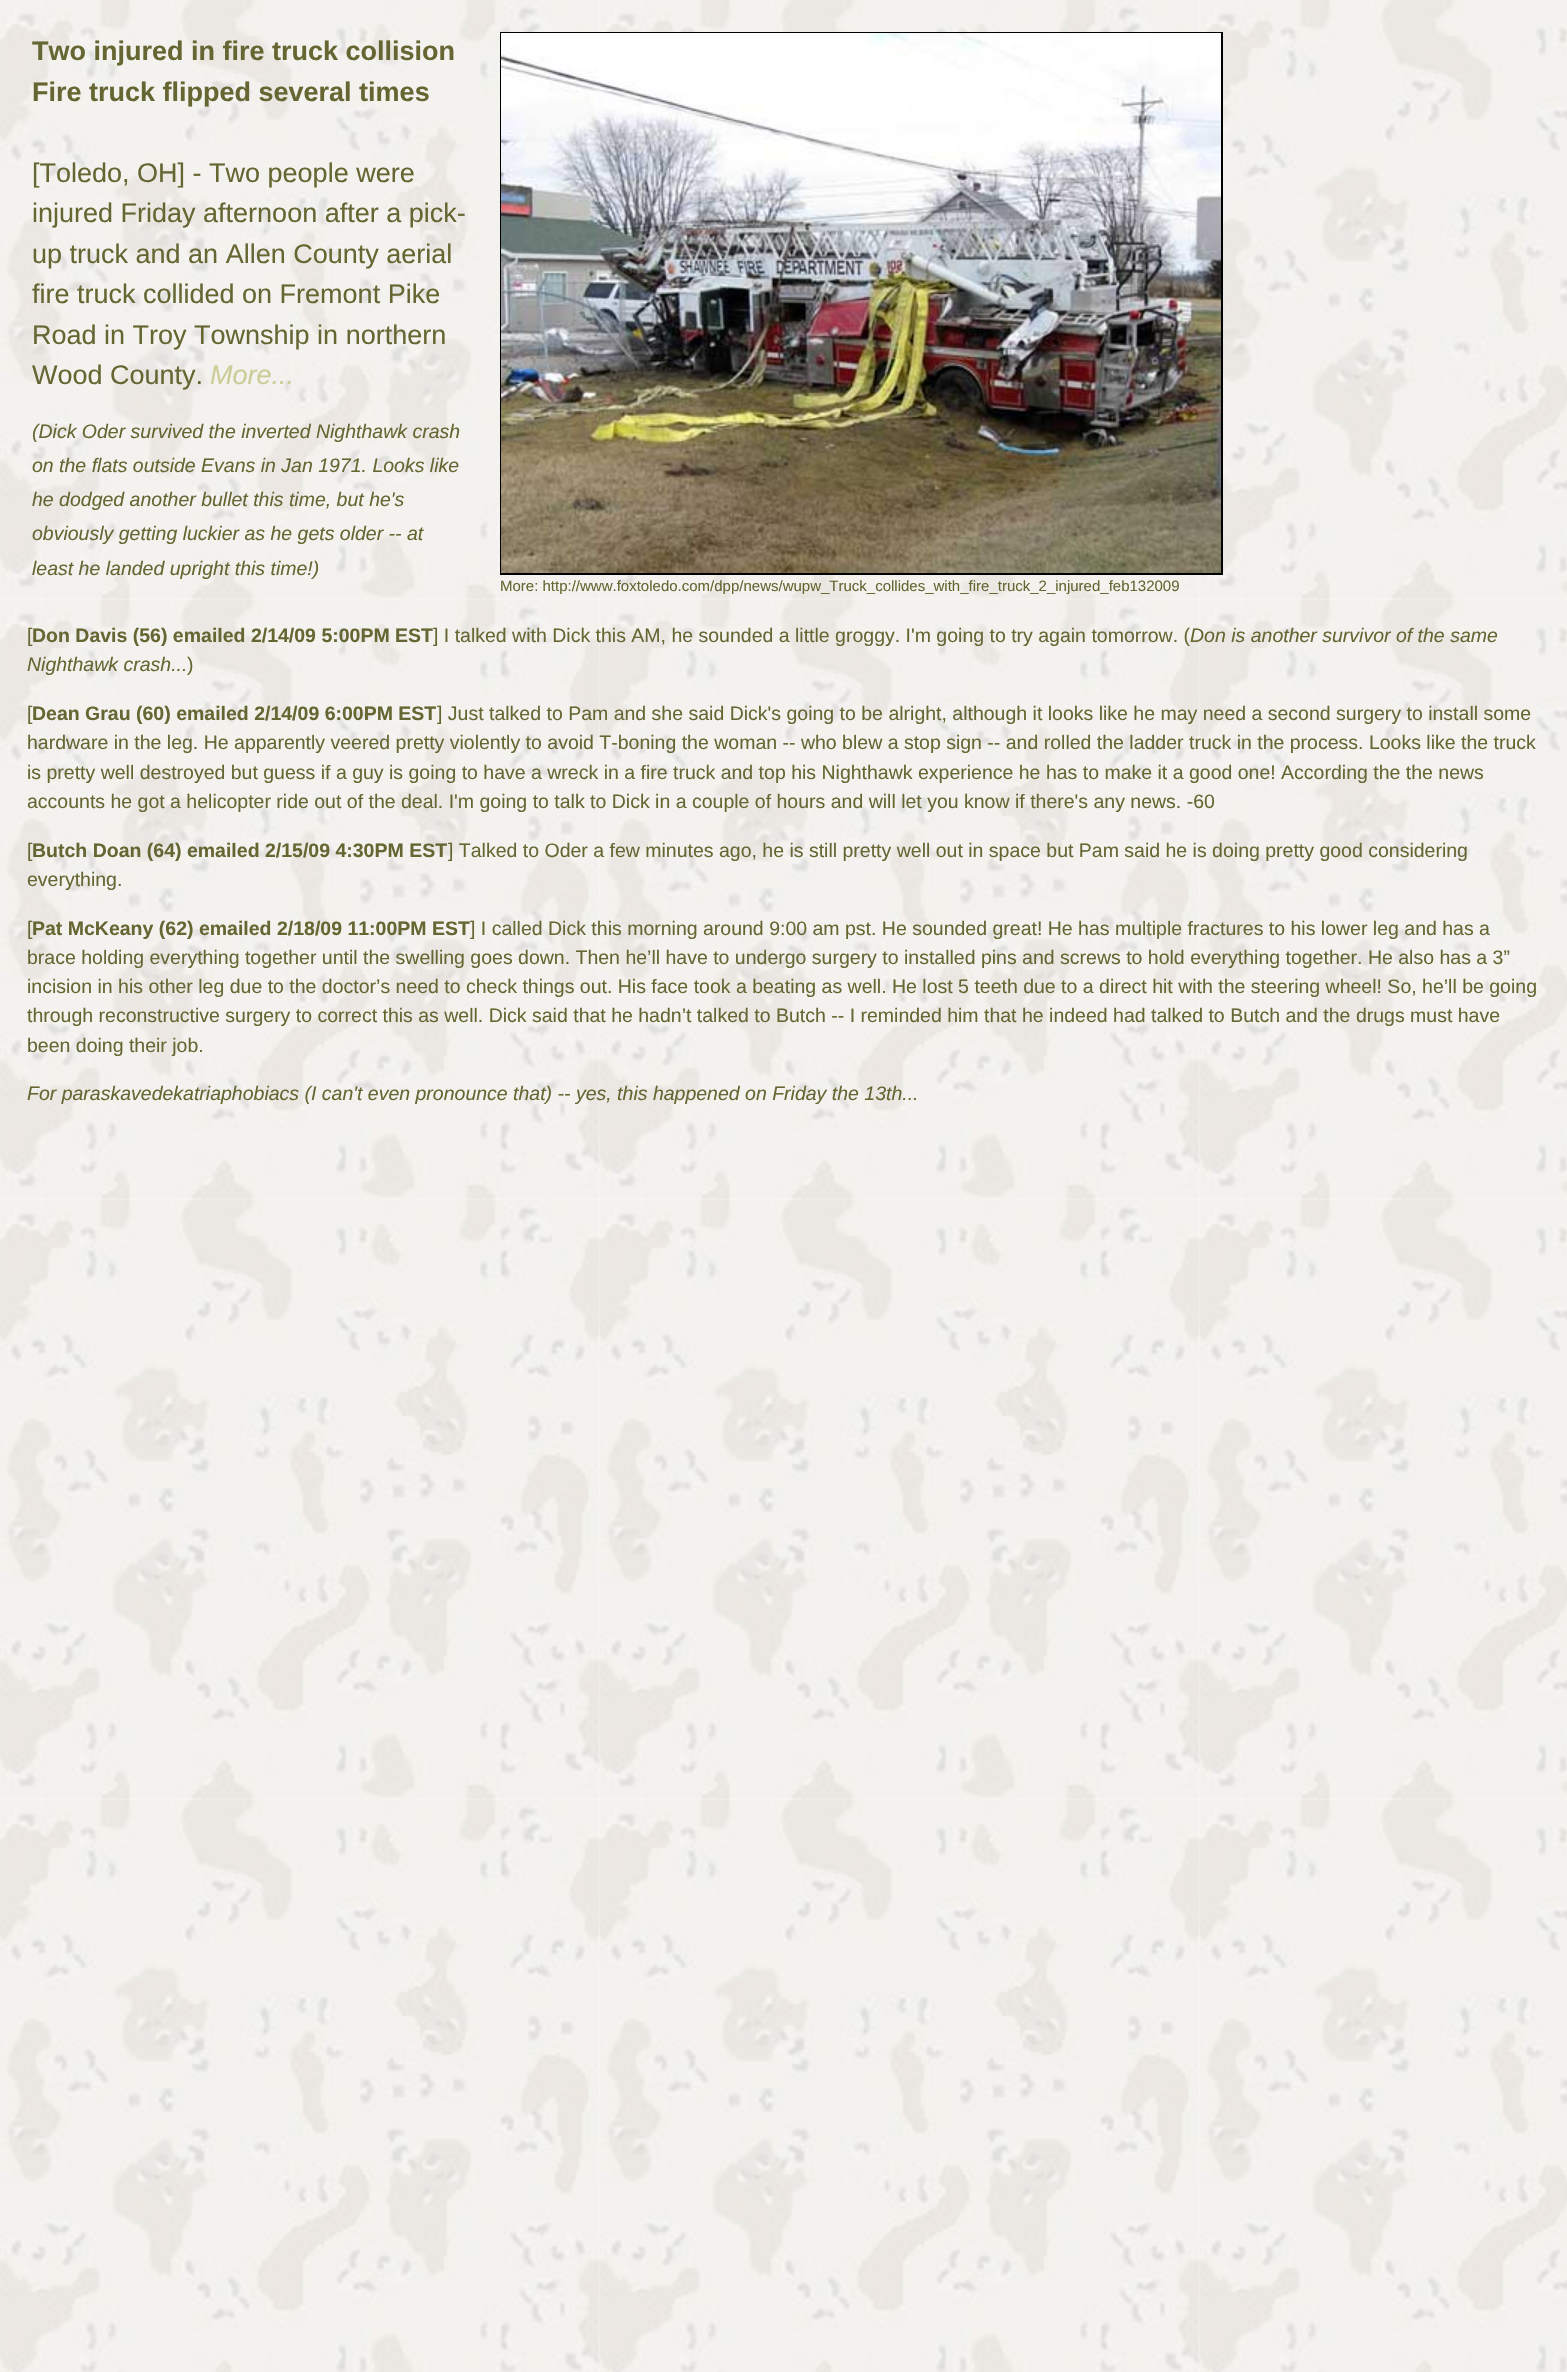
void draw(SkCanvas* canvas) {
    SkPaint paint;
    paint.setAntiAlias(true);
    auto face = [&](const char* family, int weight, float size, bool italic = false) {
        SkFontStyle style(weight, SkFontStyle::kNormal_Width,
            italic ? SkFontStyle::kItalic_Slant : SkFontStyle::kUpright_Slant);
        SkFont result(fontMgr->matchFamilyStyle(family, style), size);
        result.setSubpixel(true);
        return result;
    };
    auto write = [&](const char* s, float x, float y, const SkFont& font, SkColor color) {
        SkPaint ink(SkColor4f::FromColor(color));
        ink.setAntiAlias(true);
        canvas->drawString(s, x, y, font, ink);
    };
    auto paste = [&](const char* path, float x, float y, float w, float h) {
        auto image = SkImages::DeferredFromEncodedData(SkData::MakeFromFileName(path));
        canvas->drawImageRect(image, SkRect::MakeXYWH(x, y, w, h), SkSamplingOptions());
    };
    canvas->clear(SK_ColorWHITE);
    paste("pic1.png", 0, 0, 1567, 2372);
    auto kFont1 = face("Liberation Sans", 700, 27);
    write("Two injured in fire truck collision", 32, 60, kFont1, SkColorSetRGB(102, 102, 51));
    write("Fire truck flipped several times", 32, 101, kFont1, SkColorSetRGB(102, 102, 51));
    auto kFont2 = face("Liberation Sans", 400, 27);
    write("[Toledo, OH] - Two people were", 32, 182, kFont2, SkColorSetRGB(102, 102, 51));
    write("injured Friday afternoon after a pick-", 32, 222, kFont2, SkColorSetRGB(102, 102, 51));
    write("up truck and an Allen County aerial", 32, 263, kFont2, SkColorSetRGB(102, 102, 51));
    write("fire truck collided on Fremont Pike", 32, 303, kFont2, SkColorSetRGB(102, 102, 51));
    write("Road in Troy Township in northern", 32, 344, kFont2, SkColorSetRGB(102, 102, 51));
    write("Wood County.", 32, 384, kFont2, SkColorSetRGB(102, 102, 51));
    auto kFont3 = face("Liberation Sans", 400, 27, true);
    write("More...", 210, 384, kFont3, SkColorSetRGB(204, 204, 153));
    auto kFont4 = face("Liberation Sans", 400, 19.5f, true);
    write("(Dick Oder survived the inverted Nighthawk crash", 32, 438, kFont4, SkColorSetRGB(102, 102, 51));
    write("on the flats outside Evans in Jan 1971. Looks like", 32, 472, kFont4, SkColorSetRGB(102, 102, 51));
    write("he dodged another bullet this time, but he's", 32, 506, kFont4, SkColorSetRGB(102, 102, 51));
    write("obviously getting luckier as he gets older -- at", 32, 540, kFont4, SkColorSetRGB(102, 102, 51));
    write("least he landed upright this time!)", 32, 575, kFont4, SkColorSetRGB(102, 102, 51));
    paint.setStyle(SkPaint::kStroke_Style);
    paint.setStrokeWidth(2);
    paint.setColor(SK_ColorBLACK);
    canvas->drawRect(SkRect::MakeXYWH(501, 33, 721, 541), paint);
    paste("pic2.png", 501, 33, 720, 540);
    auto kFont5 = face("Liberation Sans", 400, 15);
    write("More: http://www.foxtoledo.com/dpp/news/wupw_Truck_collides_with_fire_truck_2_injured_feb132009", 500, 591, kFont5, SkColorSetRGB(102, 102, 51));
    auto kFont6 = face("Liberation Sans", 400, 19.5f);
    write("[", 27, 642, kFont6, SkColorSetRGB(102, 102, 51));
    auto kFont7 = face("Liberation Sans", 700, 19.5f);
    write("Don Davis (56) emailed 2/14/09 5:00PM EST", 32, 642, kFont7, SkColorSetRGB(102, 102, 51));
    write("] I talked with Dick this AM, he sounded a little groggy. I'm going to try again tomorrow. (", 433, 642, kFont6, SkColorSetRGB(102, 102, 51));
    write("Don is another survivor of the same", 1190, 642, kFont4, SkColorSetRGB(102, 102, 51));
    write("Nighthawk crash...", 27, 671, kFont4, SkColorSetRGB(102, 102, 51));
    write(")", 187, 671, kFont6, SkColorSetRGB(102, 102, 51));
    write("[", 27, 720, kFont6, SkColorSetRGB(102, 102, 51));
    write("Dean Grau (60) emailed 2/14/09 6:00PM EST", 32, 720, kFont7, SkColorSetRGB(102, 102, 51));
    write("] Just talked to Pam and she said Dick's going to be alright, although it looks like he may need a second surgery to install some", 437, 720, kFont6, SkColorSetRGB(102, 102, 51));
    write("hardware in the leg. He apparently veered pretty violently to avoid T-boning the woman -- who blew a stop sign -- and rolled the ladder truck in the process. Looks like the truck", 27, 749, kFont6, SkColorSetRGB(102, 102, 51));
    write("is pretty well destroyed but guess if a guy is going to have a wreck in a fire truck and top his Nighthawk experience he has to make it a good one! According the the news", 27, 779, kFont6, SkColorSetRGB(102, 102, 51));
    write("accounts he got a helicopter ride out of the deal. I'm going to talk to Dick in a couple of hours and will let you know if there's any news. -60", 27, 808, kFont6, SkColorSetRGB(102, 102, 51));
    write("[", 27, 857, kFont6, SkColorSetRGB(102, 102, 51));
    write("Butch Doan (64) emailed 2/15/09 4:30PM EST", 32, 857, kFont7, SkColorSetRGB(102, 102, 51));
    write("] Talked to Oder a few minutes ago, he is still pretty well out in space but Pam said he is doing pretty good considering", 448, 857, kFont6, SkColorSetRGB(102, 102, 51));
    write("everything.", 27, 886, kFont6, SkColorSetRGB(102, 102, 51));
    write("[", 27, 935, kFont6, SkColorSetRGB(102, 102, 51));
    write("Pat McKeany (62) emailed 2/18/09 11:00PM EST", 32, 935, kFont7, SkColorSetRGB(102, 102, 51));
    write("] I called Dick this morning around 9:00 am pst. He sounded great! He has multiple fractures to his lower leg and has a", 470, 935, kFont6, SkColorSetRGB(102, 102, 51));
    write("brace holding everything together until the swelling goes down. Then he’ll have to undergo surgery to installed pins and screws to hold everything together. He also has a 3”", 27, 964, kFont6, SkColorSetRGB(102, 102, 51));
    write("incision in his other leg due to the doctor’s need to check things out. His face took a beating as well. He lost 5 teeth due to a direct hit with the steering wheel! So, he’ll be going", 27, 993, kFont6, SkColorSetRGB(102, 102, 51));
    write("through reconstructive surgery to correct this as well. Dick said that he hadn’t talked to Butch -- I reminded him that he indeed had talked to Butch and the drugs must have", 27, 1022, kFont6, SkColorSetRGB(102, 102, 51));
    write("been doing their job.", 27, 1052, kFont6, SkColorSetRGB(102, 102, 51));
    write("For paraskavedekatriaphobiacs (I can't even pronounce that) -- yes, this happened on Friday the 13th...", 27, 1100, kFont4, SkColorSetRGB(102, 102, 51));
}
